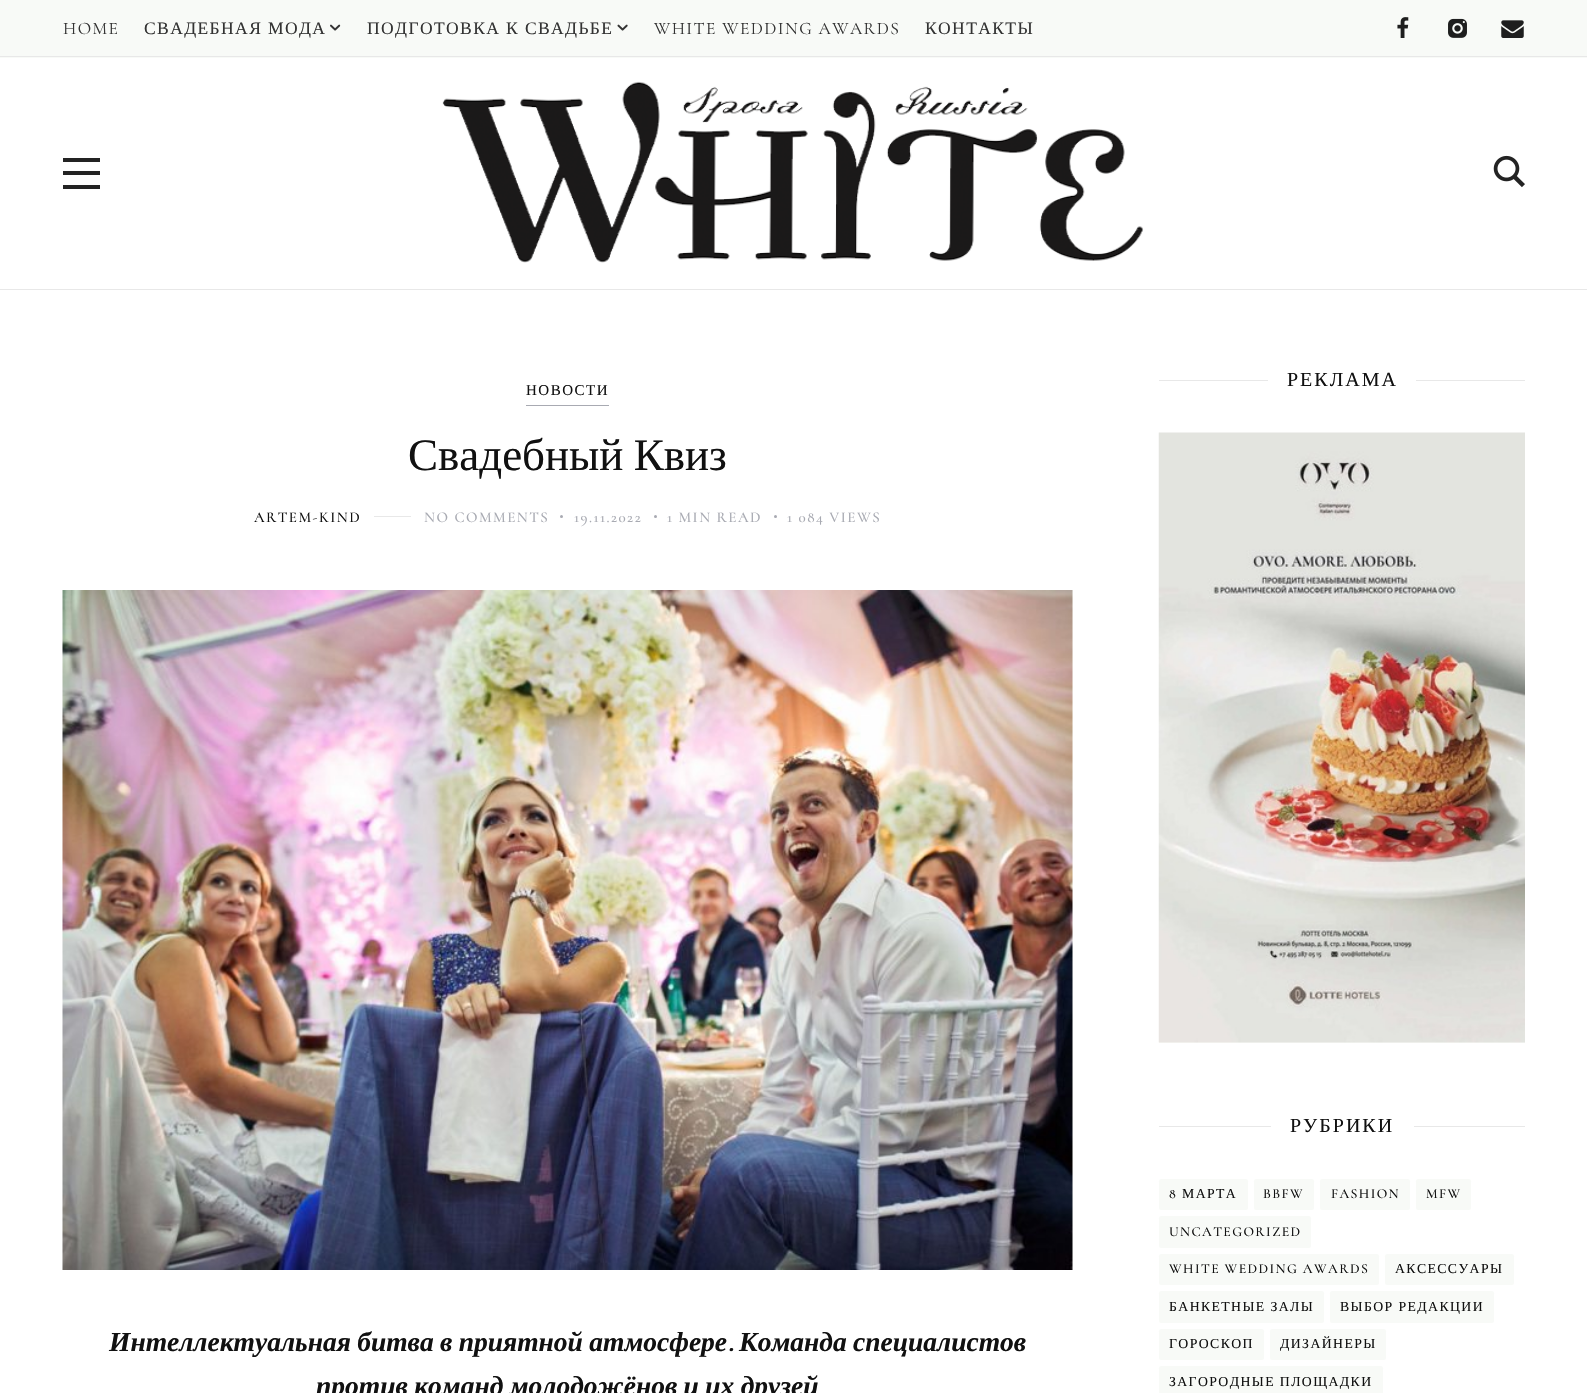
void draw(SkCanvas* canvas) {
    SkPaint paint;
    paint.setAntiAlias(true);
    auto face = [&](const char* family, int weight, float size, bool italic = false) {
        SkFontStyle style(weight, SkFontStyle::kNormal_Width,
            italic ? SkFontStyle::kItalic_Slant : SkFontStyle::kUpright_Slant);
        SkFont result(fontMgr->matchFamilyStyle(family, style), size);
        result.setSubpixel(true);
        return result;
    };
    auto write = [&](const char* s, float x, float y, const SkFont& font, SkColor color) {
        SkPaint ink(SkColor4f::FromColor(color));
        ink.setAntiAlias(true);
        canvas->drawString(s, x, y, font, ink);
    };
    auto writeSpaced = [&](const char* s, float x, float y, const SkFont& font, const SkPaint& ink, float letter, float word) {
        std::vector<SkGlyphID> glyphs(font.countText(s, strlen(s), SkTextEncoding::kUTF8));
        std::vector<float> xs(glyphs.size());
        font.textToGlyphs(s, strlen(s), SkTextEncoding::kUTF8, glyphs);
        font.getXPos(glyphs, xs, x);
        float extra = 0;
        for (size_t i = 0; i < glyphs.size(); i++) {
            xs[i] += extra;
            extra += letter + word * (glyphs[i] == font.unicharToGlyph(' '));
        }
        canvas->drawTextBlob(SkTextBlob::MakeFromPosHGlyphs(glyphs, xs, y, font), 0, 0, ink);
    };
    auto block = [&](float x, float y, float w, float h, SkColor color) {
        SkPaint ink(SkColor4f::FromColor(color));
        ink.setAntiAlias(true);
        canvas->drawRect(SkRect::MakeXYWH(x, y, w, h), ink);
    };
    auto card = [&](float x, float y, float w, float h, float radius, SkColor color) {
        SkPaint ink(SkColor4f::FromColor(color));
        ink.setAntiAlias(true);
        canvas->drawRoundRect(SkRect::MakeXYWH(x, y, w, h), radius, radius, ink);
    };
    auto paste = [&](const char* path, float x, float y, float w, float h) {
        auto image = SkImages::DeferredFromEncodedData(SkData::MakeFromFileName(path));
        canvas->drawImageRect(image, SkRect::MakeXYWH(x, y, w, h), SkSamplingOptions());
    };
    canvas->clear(SK_ColorWHITE);
    block(0, 0, 1587, 58, SkColorSetRGB(248, 250, 247));
    block(0, 56, 1587, 1, SkColorSetRGB(232, 232, 232));
    auto kFont1 = face("Cormorant Garamond", 400, 17.5f);
    paint.setColor(SkColorSetRGB(51, 51, 51));
    writeSpaced("HOME", 63, 34, kFont1, paint, 1.4f, 0);
    auto kFont2 = face("Liberation Serif", 400, 17.5f);
    writeSpaced("СВАДЕБНАЯ МОДА", 144, 34, kFont2, paint, 1.4f, 0);
    paste("pic1.png", 330, 24, 11, 7);
    writeSpaced("ПОДГОТОВКА К СВАДЬБЕ", 367, 34, kFont2, paint, 1.4f, 0);
    paste("pic2.png", 617, 24, 11, 7);
    writeSpaced("WHITE WEDDING AWARDS", 654, 34, kFont1, paint, 1.4f, 0);
    writeSpaced("КОНТАКТЫ", 925, 34, kFont2, paint, 1.4f, 0);
    paste("pic3.png", 1397, 17, 12, 21);
    paste("pic4.png", 1448, 18, 19, 20);
    paste("pic5.png", 1501, 20, 23, 18);
    block(0, 289, 1587, 1, SkColorSetRGB(232, 232, 232));
    block(63, 158, 37, 4, SkColorSetRGB(35, 35, 35));
    block(63, 185, 37, 4, SkColorSetRGB(35, 35, 35));
    block(63, 171, 37, 4, SkColorSetRGB(35, 35, 35));
    paste("pic6.png", 442, 81, 702, 182);
    paste("pic7.png", 1493, 155, 32, 33);
    block(526, 405, 83, 1, SkColorSetRGB(168, 170, 178));
    auto kFont3 = face("Liberation Serif", 400, 15);
    paint.setColor(SkColorSetRGB(17, 17, 17));
    writeSpaced("НОВОСТИ", 526, 395, kFont3, paint, 1.5f, 0);
    auto kFont4 = face("Liberation Serif", 400, 45);
    writeSpaced("Свадебный Квиз", 408, 470, kFont4, paint, 0, -1);
    auto kFont5 = face("Cormorant", 500, 15);
    writeSpaced("ARTEM-KIND", 254, 522, kFont5, paint, 1.5f, 0);
    block(374, 516, 37, 1, SkColorSetRGB(232, 232, 232));
    paint.setColor(SkColorSetRGB(168, 170, 178));
    writeSpaced("NO COMMENTS", 424, 522, kFont5, paint, 1.5f, 0);
    canvas->drawCircle(561.5f, 516.5f, 1.5f, paint);
    writeSpaced("19.11.2022", 574, 522, kFont5, paint, 1.5f, 0);
    canvas->drawCircle(655.5f, 516.5f, 1.5f, paint);
    writeSpaced("1 MIN READ", 667, 522, kFont5, paint, 1.5f, 0);
    canvas->drawCircle(775.5f, 516.5f, 1.5f, paint);
    writeSpaced("1 084 VIEWS", 787, 522, kFont5, paint, 1.5f, 0);
    block(1072, 590, 1, 680, SkColorSetRGB(248, 250, 247));
    paste("pic8.png", 62, 590, 1011, 680);
    auto kFont6 = face("Liberation Serif", 700, 27.5f, true);
    paint.setColor(SkColorSetRGB(17, 17, 17));
    writeSpaced("Интеллектуальная битва в приятной атмосфере", 109, 1351, kFont6, paint, 0, -0.5f);
    auto kFont7 = face("Cormorant", 700, 27.5f, true);
    write(".", 728, 1351, kFont7, SkColorSetRGB(17, 17, 17));
    writeSpaced("Команда специалистов", 739, 1351, kFont6, paint, 0, -0.5f);
    writeSpaced("против команд молодожёнов и их друзей", 316, 1395, kFont6, paint, 0, -0.5f);
    block(1159, 380, 109, 1, SkColorSetRGB(232, 232, 232));
    auto kFont8 = face("Liberation Serif", 400, 20);
    writeSpaced("РЕКЛАМА", 1287, 386, kFont8, paint, 2, 0);
    block(1416, 380, 109, 1, SkColorSetRGB(232, 232, 232));
    block(1159, 1042, 366, 1, SkColorSetRGB(248, 250, 247));
    paste("pic9.png", 1158, 432, 367, 611);
    block(1159, 1126, 112, 1, SkColorSetRGB(232, 232, 232));
    writeSpaced("РУБРИКИ", 1290, 1132, kFont8, paint, 2, 0);
    block(1414, 1126, 111, 1, SkColorSetRGB(232, 232, 232));
    card(1159, 1179, 89, 31, 2.5f, SkColorSetRGB(248, 250, 247));
    auto kFont9 = face("Cormorant", 500, 13.75f);
    writeSpaced("8", 1169, 1198, kFont9, paint, 1.4f, 0);
    auto kFont10 = face("Liberation Serif", 400, 13.75f);
    writeSpaced("МАРТА", 1182, 1198, kFont10, paint, 1.4f, 0);
    card(1254, 1179, 60, 31, 2.5f, SkColorSetRGB(248, 250, 247));
    writeSpaced("BBFW", 1263, 1198, kFont9, paint, 1.4f, 0);
    card(1320, 1179, 90, 31, 2.5f, SkColorSetRGB(248, 250, 247));
    writeSpaced("FASHION", 1331, 1198, kFont9, paint, 1.4f, 0);
    card(1416, 1179, 55, 31, 2.5f, SkColorSetRGB(248, 250, 247));
    writeSpaced("MFW", 1426, 1198, kFont9, paint, 1.4f, 0);
    card(1159, 1216, 152, 32, 2.5f, SkColorSetRGB(248, 250, 247));
    writeSpaced("UNCATEGORIZED", 1169, 1236, kFont9, paint, 1.4f, 0);
    card(1159, 1254, 220, 31, 2.5f, SkColorSetRGB(248, 250, 247));
    writeSpaced("WHITE WEDDING AWARDS", 1169, 1273, kFont9, paint, 1.4f, 0);
    card(1385, 1254, 129, 31, 2.5f, SkColorSetRGB(248, 250, 247));
    writeSpaced("АКСЕССУАРЫ", 1395, 1273, kFont10, paint, 1.4f, 0);
    card(1159, 1291, 165, 32, 2.5f, SkColorSetRGB(248, 250, 247));
    writeSpaced("БАНКЕТНЫЕ ЗАЛЫ", 1169, 1311, kFont10, paint, 1.4f, 0);
    card(1330, 1291, 164, 32, 2.5f, SkColorSetRGB(248, 250, 247));
    writeSpaced("ВЫБОР РЕДАКЦИИ", 1340, 1311, kFont10, paint, 1.4f, 0);
    card(1159, 1329, 105, 31, 2.5f, SkColorSetRGB(248, 250, 247));
    writeSpaced("ГОРОСКОП", 1169, 1348, kFont10, paint, 1.4f, 0);
    card(1270, 1329, 116, 31, 2.5f, SkColorSetRGB(248, 250, 247));
    writeSpaced("ДИЗАЙНЕРЫ", 1280, 1348, kFont10, paint, 1.4f, 0);
    card(1159, 1366, 224, 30, 2.5f, SkColorSetRGB(248, 250, 247));
    writeSpaced("ЗАГОРОДНЫЕ ПЛОЩАДКИ", 1169, 1386, kFont10, paint, 1.4f, 0);
}
